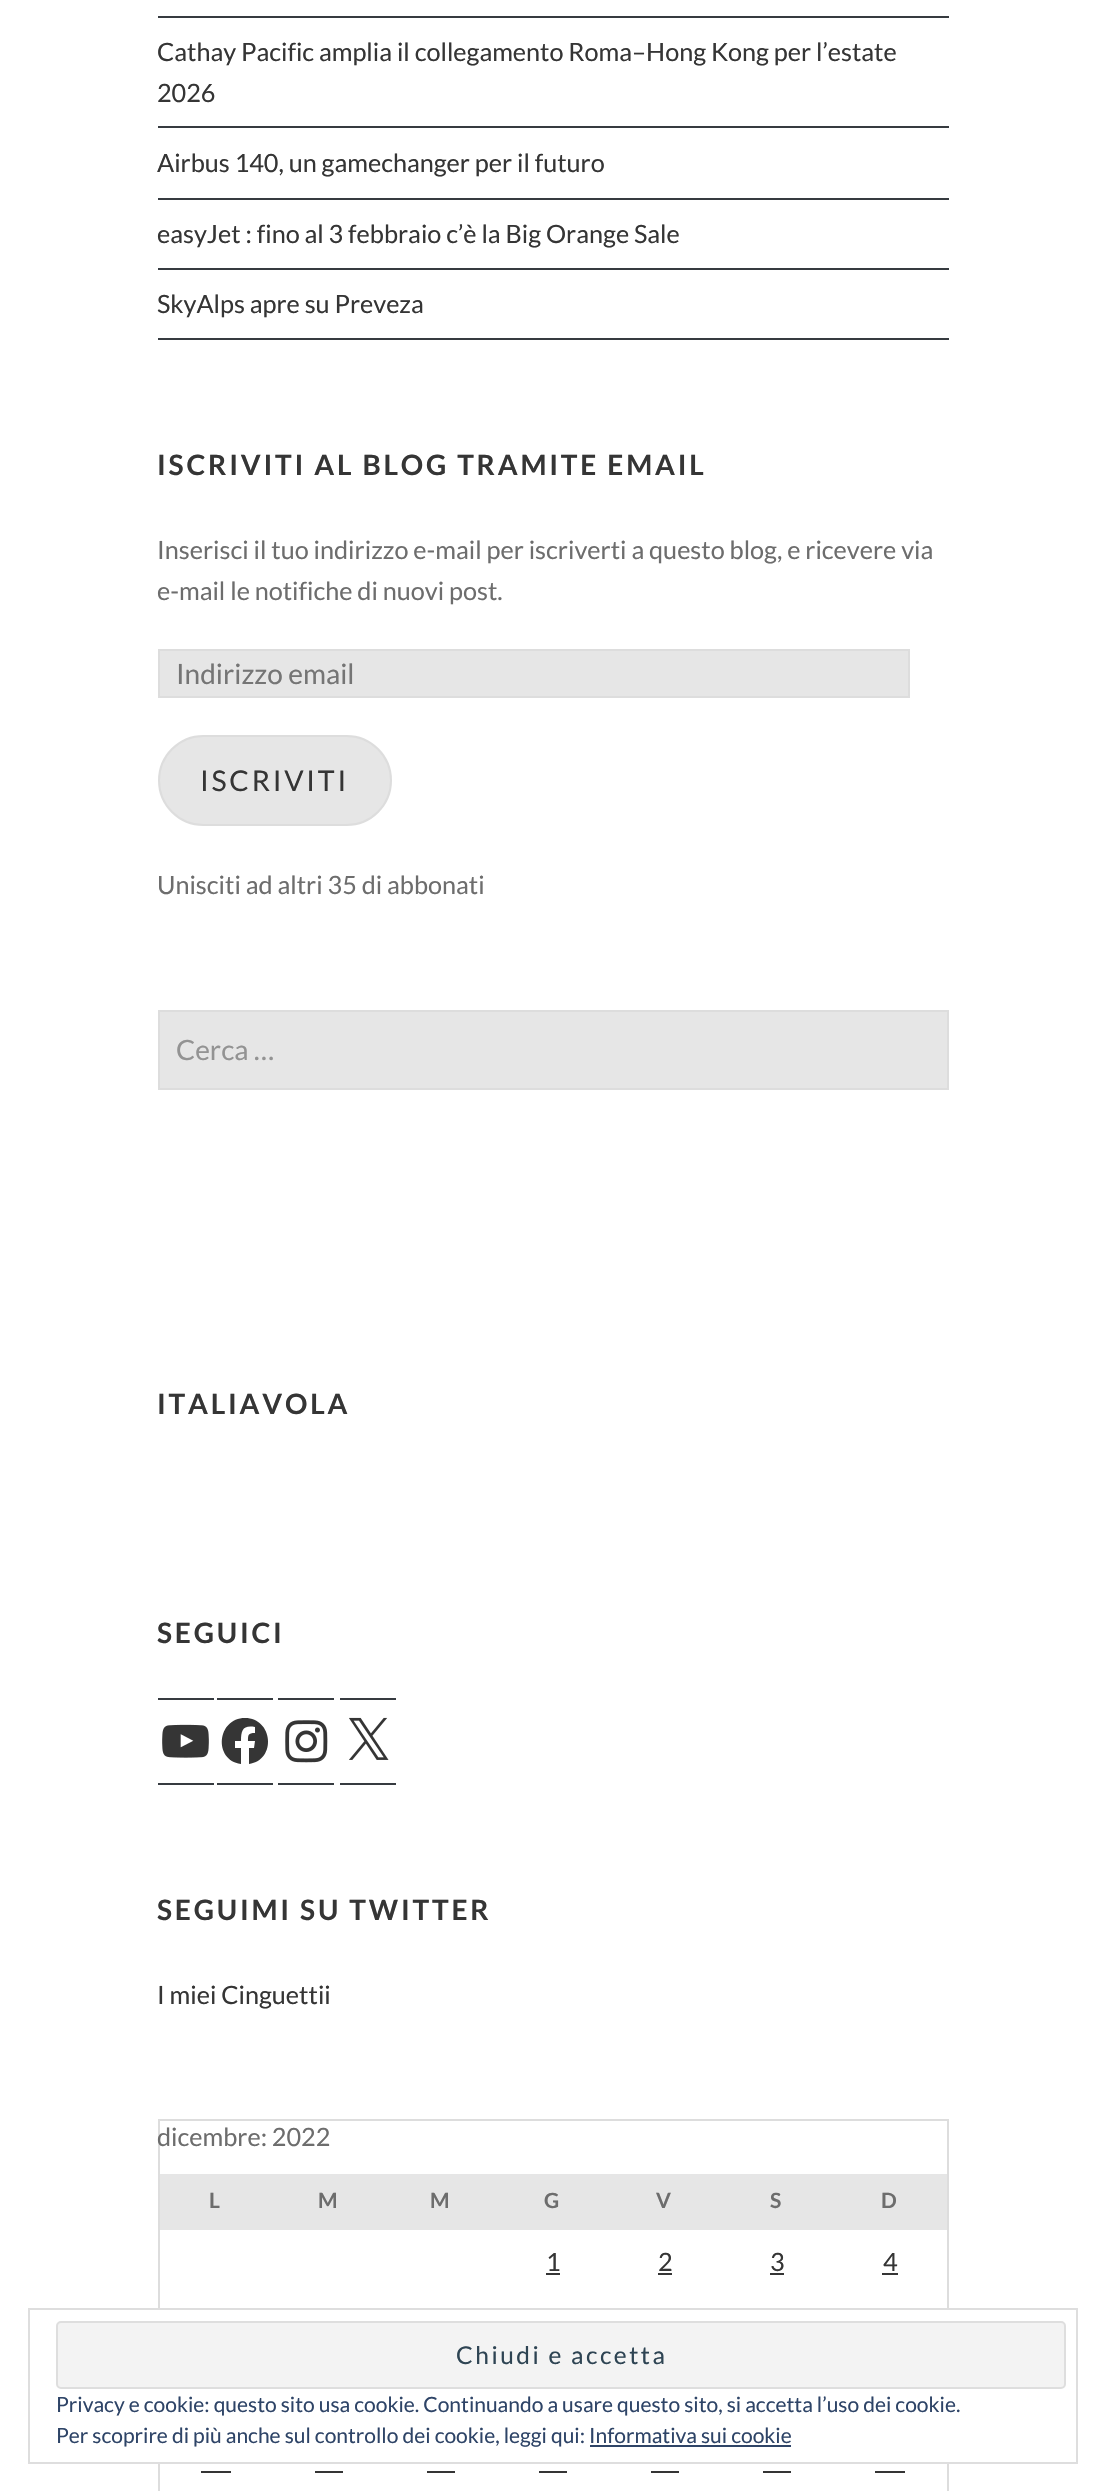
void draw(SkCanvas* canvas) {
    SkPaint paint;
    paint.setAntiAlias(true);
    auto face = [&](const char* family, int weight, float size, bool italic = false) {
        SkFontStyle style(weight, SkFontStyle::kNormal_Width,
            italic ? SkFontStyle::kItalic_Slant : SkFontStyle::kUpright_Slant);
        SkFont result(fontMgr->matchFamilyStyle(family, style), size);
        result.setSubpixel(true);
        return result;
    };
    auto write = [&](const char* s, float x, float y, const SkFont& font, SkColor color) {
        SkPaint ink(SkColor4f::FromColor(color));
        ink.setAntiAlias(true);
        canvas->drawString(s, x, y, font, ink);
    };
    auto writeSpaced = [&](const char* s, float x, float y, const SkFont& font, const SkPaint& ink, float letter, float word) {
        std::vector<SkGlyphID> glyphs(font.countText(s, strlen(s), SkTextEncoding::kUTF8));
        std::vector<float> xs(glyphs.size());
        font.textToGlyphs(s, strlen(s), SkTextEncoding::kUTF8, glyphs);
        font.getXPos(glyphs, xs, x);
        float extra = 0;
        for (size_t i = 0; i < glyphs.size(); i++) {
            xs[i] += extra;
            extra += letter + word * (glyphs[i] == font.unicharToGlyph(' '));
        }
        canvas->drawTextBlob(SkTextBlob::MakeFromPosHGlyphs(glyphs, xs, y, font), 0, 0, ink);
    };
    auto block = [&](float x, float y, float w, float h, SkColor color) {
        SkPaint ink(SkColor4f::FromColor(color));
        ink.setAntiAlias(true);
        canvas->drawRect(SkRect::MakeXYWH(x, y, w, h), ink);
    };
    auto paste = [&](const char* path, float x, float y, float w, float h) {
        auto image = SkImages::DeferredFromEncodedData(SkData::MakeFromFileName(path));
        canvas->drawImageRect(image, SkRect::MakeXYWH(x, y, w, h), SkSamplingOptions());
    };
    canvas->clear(SK_ColorWHITE);
    block(158, 16, 791, 2, SkColorSetRGB(54, 59, 64));
    block(158, 126, 791, 2, SkColorSetRGB(54, 59, 64));
    auto kFont1 = face("Lato", 400, 25.2f);
    write("Cathay Pacific amplia il collegamento Roma–Hong Kong per l’estate", 157, 61, kFont1, SkColorSetRGB(53, 53, 53));
    write("2026", 157, 102, kFont1, SkColorSetRGB(53, 53, 53));
    block(158, 198, 791, 2, SkColorSetRGB(54, 59, 64));
    write("Airbus 140, un gamechanger per il futuro", 157, 172, kFont1, SkColorSetRGB(53, 53, 53));
    block(158, 268, 791, 2, SkColorSetRGB(54, 59, 64));
    write("easyJet : fino al 3 febbraio c’è la Big Orange Sale", 157, 243, kFont1, SkColorSetRGB(53, 53, 53));
    block(158, 338, 791, 2, SkColorSetRGB(54, 59, 64));
    write("SkyAlps apre su Preveza", 157, 313, kFont1, SkColorSetRGB(53, 53, 53));
    auto kFont2 = face("Lato", 700, 28);
    paint.setColor(SkColorSetRGB(53, 53, 53));
    writeSpaced("ISCRIVITI AL BLOG TRAMITE EMAIL", 157, 475, kFont2, paint, 2.8f, 0);
    write("Inserisci il tuo indirizzo e-mail per iscriverti a questo blog, e ricevere via", 157, 559, kFont1, SkColorSetRGB(109, 109, 109));
    write("e-mail le notifiche di nuovi post.", 157, 600, kFont1, SkColorSetRGB(109, 109, 109));
    paint.setColor(SkColorSetRGB(230, 230, 230));
    canvas->drawRect(SkRect::MakeXYWH(159, 650, 750, 47), paint);
    paint.setStyle(SkPaint::kStroke_Style);
    paint.setStrokeWidth(2);
    paint.setColor(SkColorSetRGB(221, 221, 221));
    canvas->drawRect(SkRect::MakeXYWH(159, 650, 750, 47), paint);
    auto kFont3 = face("Lato", 400, 28);
    write("Indirizzo email", 176, 684, kFont3, SkColorSetRGB(117, 117, 117));
    paint.setStyle(SkPaint::kFill_Style);
    paint.setColor(SkColorSetRGB(230, 230, 230));
    canvas->drawRoundRect(SkRect::MakeXYWH(159, 736, 232, 89), 44.5f, 44.5f, paint);
    paint.setStyle(SkPaint::kStroke_Style);
    paint.setColor(SkColorSetRGB(221, 221, 221));
    canvas->drawRoundRect(SkRect::MakeXYWH(159, 736, 232, 89), 44.5f, 44.5f, paint);
    auto kFont4 = face("Lato", 400, 28.5f);
    paint.setStyle(SkPaint::kFill_Style);
    paint.setColor(SkColorSetRGB(53, 53, 53));
    writeSpaced("ISCRIVITI", 200, 791, kFont4, paint, 2.75f, 0);
    write("Unisciti ad altri 35 di abbonati", 157, 894, kFont1, SkColorSetRGB(109, 109, 109));
    paint.setColor(SkColorSetRGB(230, 230, 230));
    canvas->drawRect(SkRect::MakeXYWH(159, 1011, 789, 78), paint);
    paint.setStyle(SkPaint::kStroke_Style);
    paint.setColor(SkColorSetRGB(221, 221, 221));
    canvas->drawRect(SkRect::MakeXYWH(159, 1011, 789, 78), paint);
    write("Cerca …", 176, 1060, kFont3, SkColorSetRGB(147, 147, 147));
    paint.setStyle(SkPaint::kFill_Style);
    paint.setColor(SkColorSetRGB(53, 53, 53));
    writeSpaced("ITALIAVOLA", 157, 1414, kFont2, paint, 2.8f, 0);
    writeSpaced("SEGUICI", 157, 1643, kFont2, paint, 2.8f, 0);
    block(158, 1698, 56, 2, SkColorSetRGB(54, 59, 64));
    block(158, 1783, 56, 2, SkColorSetRGB(54, 59, 64));
    paste("pic1.png", 162, 1724, 47, 34);
    block(217, 1698, 56, 2, SkColorSetRGB(54, 59, 64));
    block(217, 1783, 56, 2, SkColorSetRGB(54, 59, 64));
    canvas->drawPath(SkPathBuilder().moveTo(245, 1718).cubicTo(217, 1718, 213, 1760, 241, 1764).lineTo(241, 1748).lineTo(235, 1748).lineTo(235, 1741).lineTo(241, 1741).cubicTo(241, 1730, 243, 1725, 255, 1727).lineTo(255, 1733).cubicTo(248, 1733, 248, 1735, 248, 1741).lineTo(255, 1741).lineTo(254, 1748).lineTo(249, 1748).lineTo(249, 1764).cubicTo(277, 1760, 273, 1718, 245, 1718).close().detach(), paint);
    block(278, 1698, 56, 2, SkColorSetRGB(54, 59, 64));
    block(278, 1783, 56, 2, SkColorSetRGB(54, 59, 64));
    paste("pic2.png", 285, 1720, 43, 43);
    block(340, 1698, 56, 2, SkColorSetRGB(54, 59, 64));
    block(340, 1783, 56, 2, SkColorSetRGB(54, 59, 64));
    paste("pic3.png", 349, 1717, 40, 43);
    writeSpaced("SEGUIMI SU TWITTER", 157, 1920, kFont2, paint, 2.8f, 0);
    write("I miei Cinguettii", 157, 2004, kFont1, SkColorSetRGB(53, 53, 53));
    block(158, 2119, 791, 2, SkColorSetRGB(221, 221, 221));
    block(947, 2119, 2, 372, SkColorSetRGB(221, 221, 221));
    block(158, 2119, 2, 372, SkColorSetRGB(221, 221, 221));
    write("dicembre: 2022", 157, 2146, kFont1, SkColorSetRGB(109, 109, 109));
    block(160, 2174, 787, 56, SkColorSetRGB(230, 230, 230));
    auto kFont5 = face("Lato", 700, 21);
    paint.setColor(SkColorSetRGB(109, 109, 109));
    writeSpaced("L", 209, 2208, kFont5, paint, 2, 0);
    writeSpaced("M", 318, 2208, kFont5, paint, 2, 0);
    writeSpaced("M", 430, 2208, kFont5, paint, 2, 0);
    writeSpaced("G", 544, 2208, kFont5, paint, 2, 0);
    writeSpaced("V", 656, 2208, kFont5, paint, 2, 0);
    writeSpaced("S", 770, 2208, kFont5, paint, 2, 0);
    writeSpaced("D", 881, 2208, kFont5, paint, 2, 0);
    write("1", 546, 2271, kFont1, SkColorSetRGB(53, 53, 53));
    block(546, 2273, 14, 2, SkColorSetRGB(53, 53, 53));
    write("2", 658, 2271, kFont1, SkColorSetRGB(53, 53, 53));
    block(658, 2273, 14, 2, SkColorSetRGB(53, 53, 53));
    write("3", 770, 2271, kFont1, SkColorSetRGB(53, 53, 53));
    block(770, 2273, 14, 2, SkColorSetRGB(53, 53, 53));
    write("4", 883, 2271, kFont1, SkColorSetRGB(53, 53, 53));
    block(882, 2273, 16, 2, SkColorSetRGB(53, 53, 53));
    block(201, 2471, 30, 2, SkColorSetRGB(53, 53, 53));
    block(315, 2471, 28, 2, SkColorSetRGB(53, 53, 53));
    block(427, 2471, 28, 2, SkColorSetRGB(53, 53, 53));
    block(539, 2471, 28, 2, SkColorSetRGB(53, 53, 53));
    block(651, 2471, 28, 2, SkColorSetRGB(53, 53, 53));
    block(763, 2471, 28, 2, SkColorSetRGB(53, 53, 53));
    block(875, 2471, 30, 2, SkColorSetRGB(53, 53, 53));
    block(158, 2310, 791, 152, SK_ColorWHITE);
    paint.setStyle(SkPaint::kStroke_Style);
    paint.setColor(SkColorSetRGB(222, 222, 222));
    canvas->drawRect(SkRect::MakeXYWH(29, 2309, 1048, 154), paint);
    paint.setStyle(SkPaint::kFill_Style);
    paint.setColor(SkColorSetRGB(243, 243, 243));
    canvas->drawRoundRect(SkRect::MakeXYWH(57, 2322, 1008, 66), 4, 4, paint);
    paint.setStyle(SkPaint::kStroke_Style);
    paint.setColor(SkColorSetRGB(222, 222, 222));
    canvas->drawRoundRect(SkRect::MakeXYWH(57, 2322, 1008, 66), 4, 4, paint);
    auto kFont6 = face("Lato", 400, 24.5f);
    paint.setStyle(SkPaint::kFill_Style);
    paint.setColor(SkColorSetRGB(46, 68, 83));
    writeSpaced("Chiudi e accetta", 456, 2364, kFont6, paint, 2.5f, 0);
    auto kFont7 = face("Lato", 400, 21);
    write("Privacy e cookie: questo sito usa cookie. Continuando a usare questo sito, si accetta l’uso dei cookie.", 56, 2412, kFont7, SkColorSetRGB(46, 68, 103));
    write("Per scoprire di più anche sul controllo dei cookie, leggi qui: Informativa sui cookie", 56, 2443, kFont7, SkColorSetRGB(46, 68, 103));
    block(590, 2445, 201, 2, SkColorSetRGB(46, 68, 103));
}
